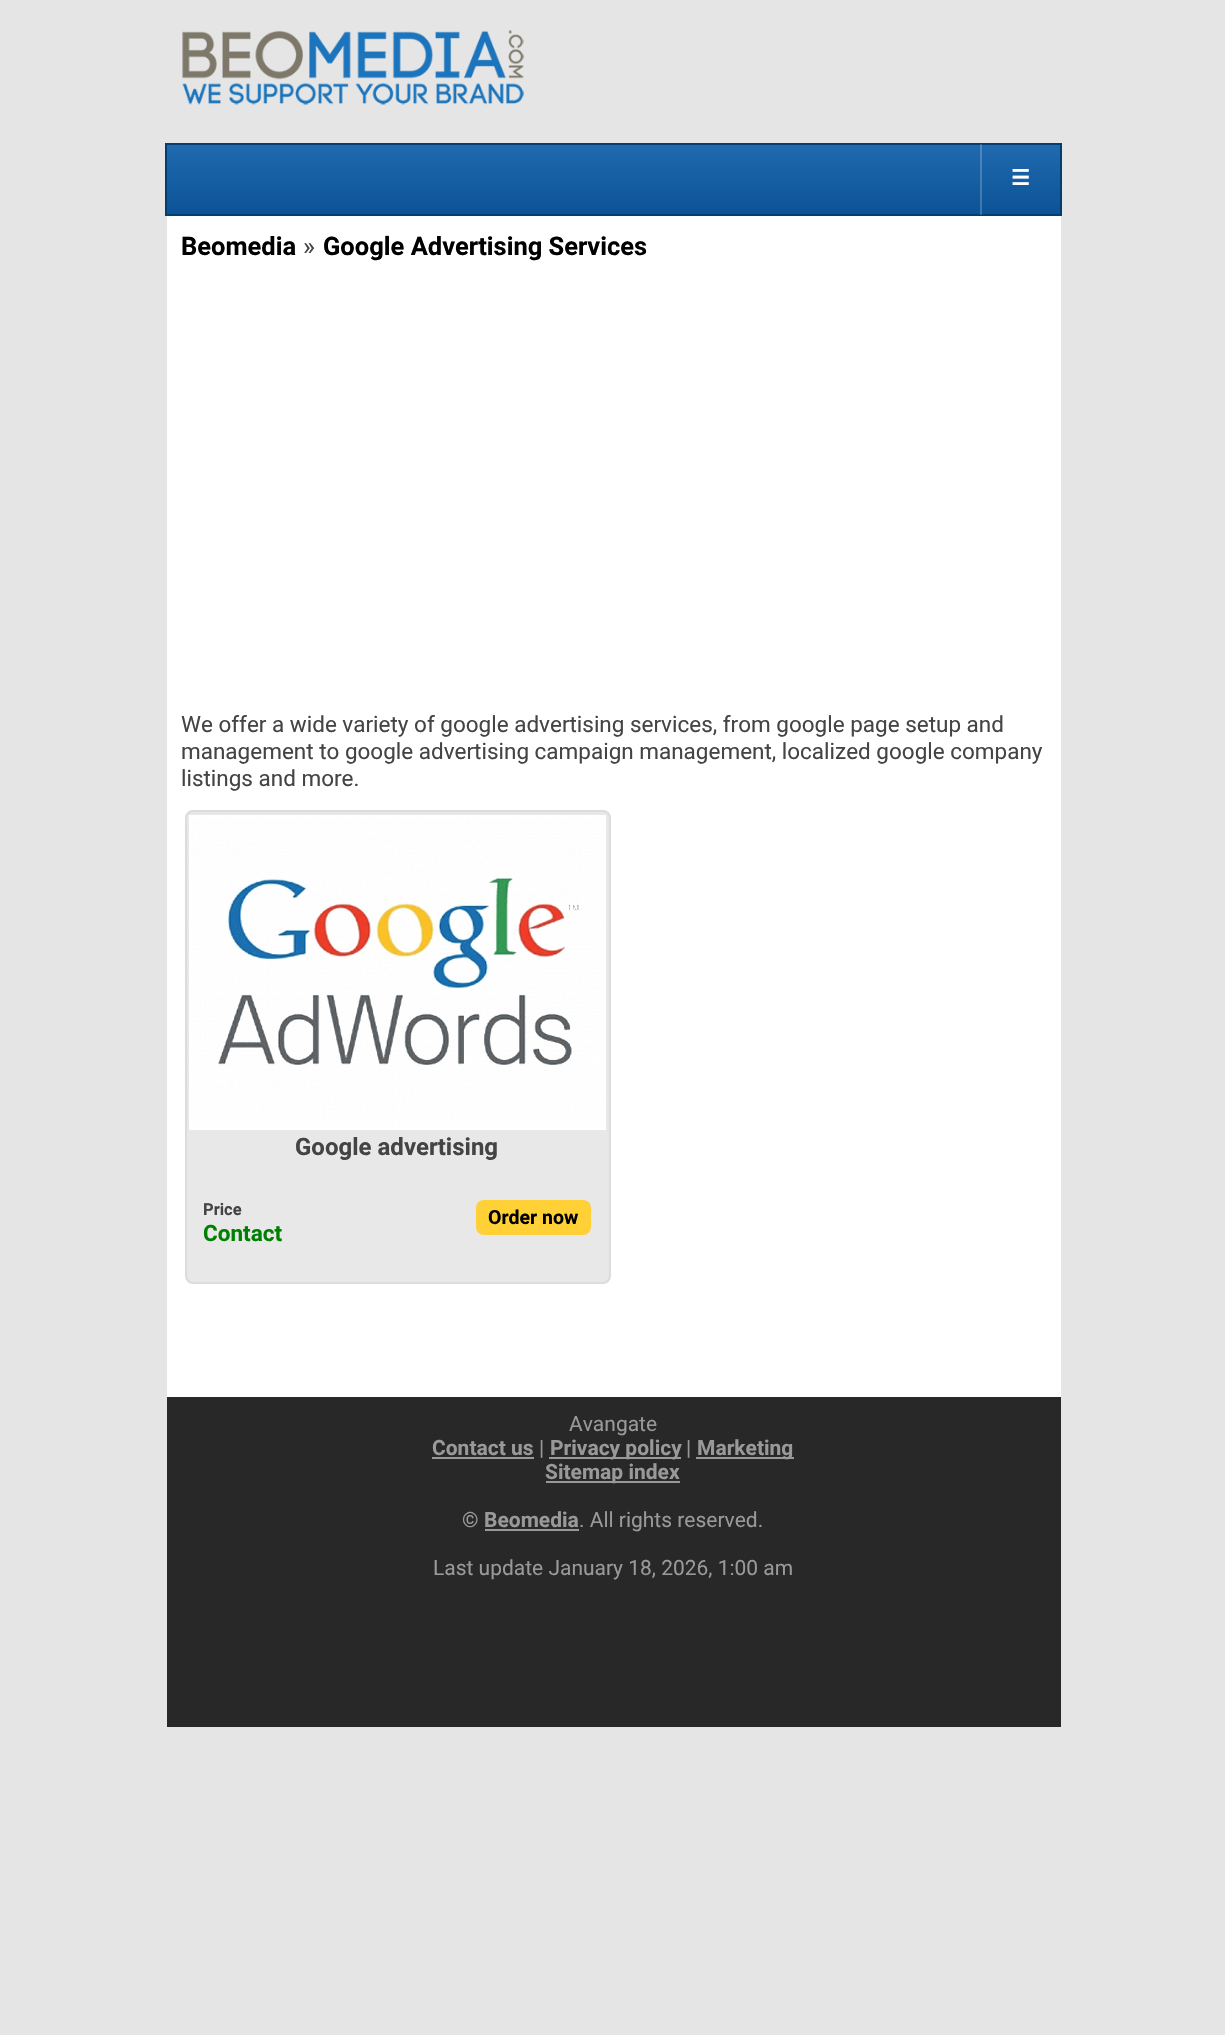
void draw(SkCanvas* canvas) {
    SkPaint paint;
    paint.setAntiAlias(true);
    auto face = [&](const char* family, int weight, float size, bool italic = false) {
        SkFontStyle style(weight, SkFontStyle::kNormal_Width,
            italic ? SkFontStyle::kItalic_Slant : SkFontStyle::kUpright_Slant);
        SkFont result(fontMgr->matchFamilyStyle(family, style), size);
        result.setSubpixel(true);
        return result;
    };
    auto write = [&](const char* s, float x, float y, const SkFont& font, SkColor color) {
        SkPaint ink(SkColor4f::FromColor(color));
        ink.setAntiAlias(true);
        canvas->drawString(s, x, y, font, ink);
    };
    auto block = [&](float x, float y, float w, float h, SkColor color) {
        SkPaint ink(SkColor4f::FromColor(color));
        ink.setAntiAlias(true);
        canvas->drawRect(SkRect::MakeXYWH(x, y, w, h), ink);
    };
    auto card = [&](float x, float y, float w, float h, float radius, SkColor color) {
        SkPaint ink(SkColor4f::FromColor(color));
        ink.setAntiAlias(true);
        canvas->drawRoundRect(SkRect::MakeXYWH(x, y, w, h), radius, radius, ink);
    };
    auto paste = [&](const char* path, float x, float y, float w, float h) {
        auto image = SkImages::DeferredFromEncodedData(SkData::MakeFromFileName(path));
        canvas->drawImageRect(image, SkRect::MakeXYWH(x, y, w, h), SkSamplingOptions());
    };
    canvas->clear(SkColorSetRGB(229, 229, 229));
    paste("pic1.png", 182, 30, 342, 75);
    {
        const SkColor colors[] = {SkColorSetRGB(32, 106, 175), SkColorSetRGB(12, 83, 150)};
        const float stops[] = {0, 1};
        const SkPoint ends[] = {{614, 144}, {614, 215}};
        paint.setShader(SkGradientShader::MakeLinear(ends, colors, stops, 2, SkTileMode::kClamp));
        paint.setAlpha(255);
    }
    canvas->drawRect(SkRect::MakeXYWH(167, 145, 893, 69), paint);
    paint.setStyle(SkPaint::kStroke_Style);
    paint.setStrokeWidth(2);
    paint.setShader(nullptr);
    paint.setColor(SkColorSetRGB(4, 61, 114));
    canvas->drawRect(SkRect::MakeXYWH(166, 144, 895, 71), paint);
    block(980, 144, 2, 71, SkColorSetARGB(51, 255, 255, 255));
    auto kFont1 = face("DejaVu Sans", 700, 21);
    write("☰", 1011, 185, kFont1, SK_ColorWHITE);
    block(167, 216, 894, 1181, SK_ColorWHITE);
    auto kFont2 = face("Roboto", 700, 25.5f);
    write("Beomedia", 181, 255, kFont2, SK_ColorBLACK);
    auto kFont3 = face("Roboto", 400, 25.5f);
    write("»", 303, 255, kFont3, SkColorSetRGB(68, 68, 68));
    write("Google Advertising Services", 323, 255, kFont2, SK_ColorBLACK);
    auto kFont4 = face("Roboto", 400, 22.5f);
    write("We offer a wide variety of google advertising services, from google page setup and", 181, 732, kFont4, SkColorSetRGB(68, 68, 68));
    write("management to google advertising campaign management, localized google company", 181, 759, kFont4, SkColorSetRGB(68, 68, 68));
    write("listings and more.", 181, 786, kFont4, SkColorSetRGB(68, 68, 68));
    paint.setStyle(SkPaint::kFill_Style);
    paint.setColor(SkColorSetRGB(232, 232, 232));
    canvas->drawRoundRect(SkRect::MakeXYWH(186, 811, 424, 472), 7, 7, paint);
    paint.setStyle(SkPaint::kStroke_Style);
    paint.setColor(SkColorSetRGB(220, 220, 220));
    canvas->drawRoundRect(SkRect::MakeXYWH(186, 811, 424, 472), 7, 7, paint);
    paint.setColor(SK_ColorWHITE);
    canvas->drawRect(SkRect::MakeXYWH(190, 816, 415, 313), paint);
    paste("pic2.png", 191, 817, 413, 311);
    auto kFont5 = face("Roboto", 700, 24);
    write("Google advertising", 295, 1155, kFont5, SkColorSetRGB(68, 68, 68));
    auto kFont6 = face("Roboto", 700, 16.5f);
    write("Price", 203, 1215, kFont6, SkColorSetRGB(68, 68, 68));
    auto kFont7 = face("Roboto", 700, 22.5f);
    write("Contact", 203, 1241, kFont7, SkColorSetRGB(0, 128, 0));
    card(476, 1200, 115, 35, 8, SkColorSetRGB(255, 209, 55));
    auto kFont8 = face("Roboto", 700, 19.5f);
    write("Order now", 488, 1224, kFont8, SK_ColorBLACK);
    block(167, 1397, 894, 330, SkColorSetRGB(40, 40, 40));
    auto kFont9 = face("Roboto", 400, 21);
    write("Avangate", 569, 1431, kFont9, SkColorSetRGB(153, 153, 153));
    auto kFont10 = face("Roboto", 700, 21);
    write("Contact us", 432, 1455, kFont10, SkColorSetRGB(153, 153, 153));
    block(432, 1457, 102, 2, SkColorSetRGB(153, 153, 153));
    write("|", 539, 1455, kFont9, SkColorSetRGB(153, 153, 153));
    block(549, 1457, 132, 2, SkColorSetRGB(153, 153, 153));
    write("Privacy policy", 550, 1455, kFont10, SkColorSetRGB(153, 153, 153));
    write("|", 686, 1455, kFont9, SkColorSetRGB(153, 153, 153));
    block(696, 1457, 98, 2, SkColorSetRGB(153, 153, 153));
    write("Marketing", 697, 1455, kFont10, SkColorSetRGB(153, 153, 153));
    block(546, 1481, 134, 2, SkColorSetRGB(153, 153, 153));
    write("Sitemap index", 545, 1479, kFont10, SkColorSetRGB(153, 153, 153));
    write("©", 462, 1527, kFont9, SkColorSetRGB(153, 153, 153));
    write("Beomedia", 484, 1527, kFont10, SkColorSetRGB(153, 153, 153));
    block(485, 1529, 94, 2, SkColorSetRGB(153, 153, 153));
    write(". All rights reserved.", 579, 1527, kFont9, SkColorSetRGB(153, 153, 153));
    write("Last update January 18, 2026, 1:00 am", 433, 1575, kFont9, SkColorSetRGB(153, 153, 153));
}
